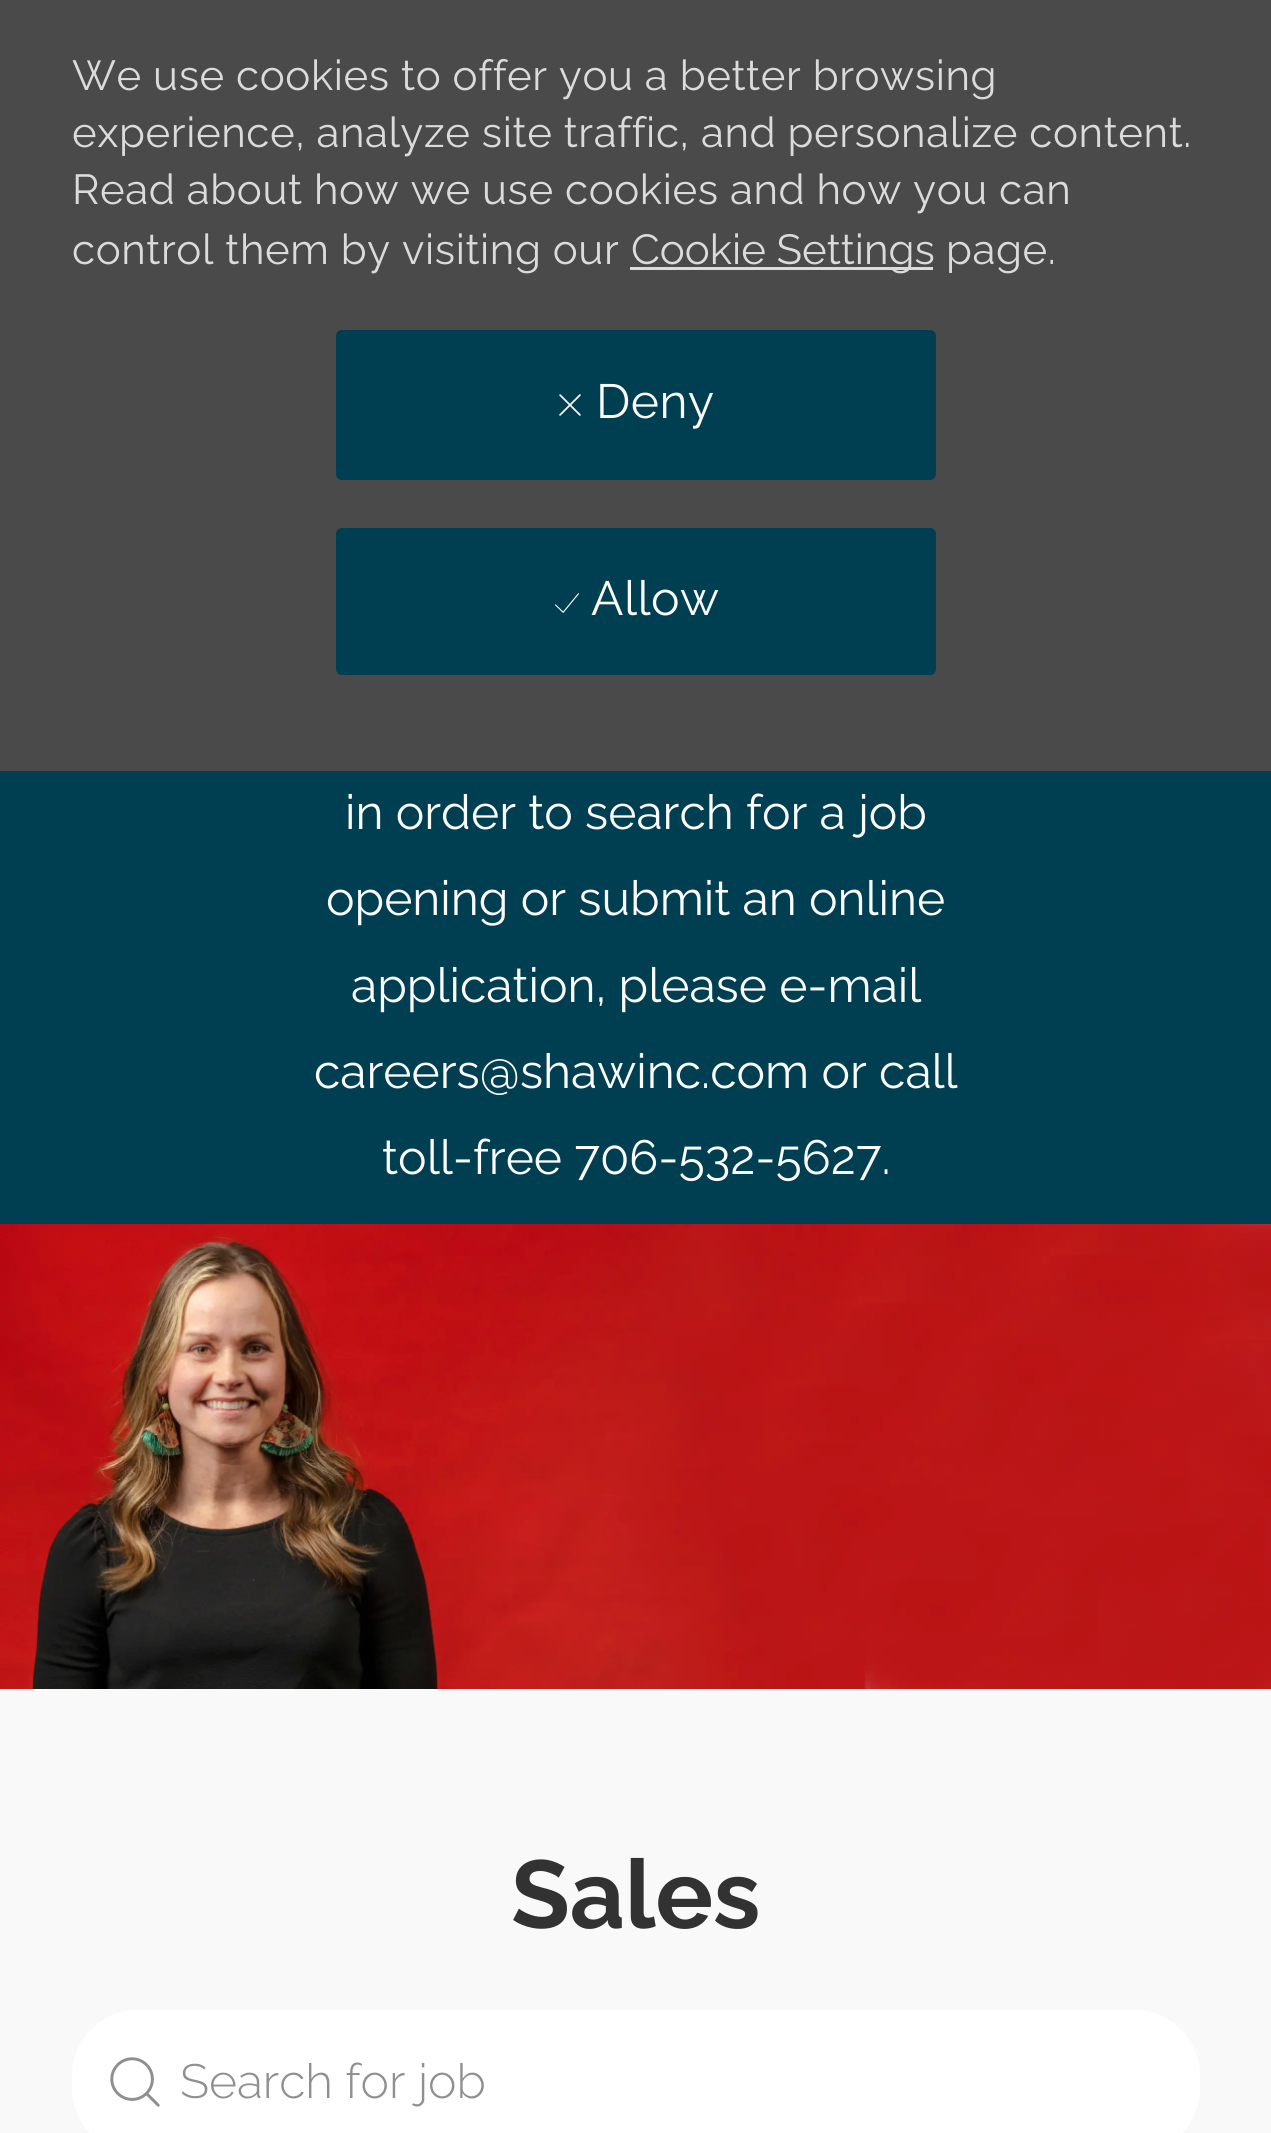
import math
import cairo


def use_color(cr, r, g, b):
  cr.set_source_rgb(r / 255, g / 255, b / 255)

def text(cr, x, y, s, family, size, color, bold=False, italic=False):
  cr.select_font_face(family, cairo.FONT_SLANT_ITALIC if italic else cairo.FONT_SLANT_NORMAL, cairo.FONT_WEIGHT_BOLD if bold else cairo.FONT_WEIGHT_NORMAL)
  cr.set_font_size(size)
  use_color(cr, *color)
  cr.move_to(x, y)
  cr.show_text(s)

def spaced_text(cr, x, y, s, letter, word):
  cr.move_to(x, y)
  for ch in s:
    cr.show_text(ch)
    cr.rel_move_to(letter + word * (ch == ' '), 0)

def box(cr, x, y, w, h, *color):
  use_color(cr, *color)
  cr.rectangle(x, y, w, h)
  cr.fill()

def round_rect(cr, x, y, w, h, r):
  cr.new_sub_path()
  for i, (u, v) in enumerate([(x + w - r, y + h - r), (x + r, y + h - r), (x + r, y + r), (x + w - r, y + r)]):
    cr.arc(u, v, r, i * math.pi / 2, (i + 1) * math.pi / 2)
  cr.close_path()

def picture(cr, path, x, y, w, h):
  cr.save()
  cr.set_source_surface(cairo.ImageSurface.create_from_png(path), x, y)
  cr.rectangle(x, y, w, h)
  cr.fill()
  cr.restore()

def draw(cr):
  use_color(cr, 0, 62, 81)
  cr.paint()
  box(cr, 0, 0, 1271, 771, 74, 74, 74)
  box(cr, 630, 267, 303, 3, 219, 219, 219)
  use_color(cr, 0, 62, 81)
  round_rect(cr, 337.5, 331.5, 597, 147, 4.5)
  cr.fill_preserve()
  cr.set_line_width(3)
  cr.stroke()
  picture(cr, "img_01.png", 559, 394, 22, 22)
  round_rect(cr, 337.5, 529.5, 597, 144, 4.5)
  cr.fill_preserve()
  cr.stroke()
  picture(cr, "img_02.png", 555, 593, 24, 20)
  box(cr, 0, 1689, 1271, 444, 249, 249, 249)
  picture(cr, "img_03.png", 0, 1224, 1271, 465)
  use_color(cr, 255, 255, 255)
  round_rect(cr, 72, 2010, 1128, 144, 66)
  cr.fill()
  picture(cr, "img_04.png", 110, 2057, 50, 50)
  cr.select_font_face("Raleway")
  cr.set_font_size(42)
  use_color(cr, 219, 219, 219)
  spaced_text(cr, 72, 90, "We use cookies to offer you a better browsing", 0.6, 0)
  spaced_text(cr, 72, 147, "experience, analyze site traffic, and personalize content.", 0.6, 0)
  spaced_text(cr, 72, 204, "Read about how we use cookies and how you can", 0.6, 0)
  spaced_text(cr, 72, 264, "control them by visiting our", 0.6, 0)
  text(cr, 631, 264, "Cookie Settings", "Raleway", 42, (219, 219, 219))
  spaced_text(cr, 946, 264, "page.", 0.6, 0)
  cr.set_font_size(48)
  use_color(cr, 252, 252, 252)
  spaced_text(cr, 596, 418, "Deny", 0.5, 0)
  spaced_text(cr, 591, 615, "Allow", 0.5, 0)
  text(cr, 345, 829, "in order to search for a job", "Raleway", 48, (252, 252, 252))
  text(cr, 326, 915, "opening or submit an online", "Raleway", 48, (252, 252, 252))
  text(cr, 351, 1002, "application, please e-mail", "Raleway", 48, (252, 252, 252))
  text(cr, 314, 1088, "careers@shawinc.com or call", "Raleway", 48, (252, 252, 252))
  text(cr, 382, 1174, "toll-free 706-532-5627.", "Raleway", 48, (252, 252, 252))
  text(cr, 511, 1928, "Sales", "Raleway", 96, (50, 50, 50), bold=True)
  text(cr, 180, 2098, "Search for job", "Raleway Light", 48, (143, 143, 143))


surface = cairo.ImageSurface(cairo.FORMAT_RGB24, 1271, 2133)
cr = cairo.Context(surface)
options = cairo.FontOptions()
options.set_hint_metrics(cairo.HINT_METRICS_OFF)
options.set_hint_style(cairo.HINT_STYLE_NONE)
cr.set_font_options(options)
cr.set_miter_limit(4)
draw(cr)
surface.write_to_png("out.png")
